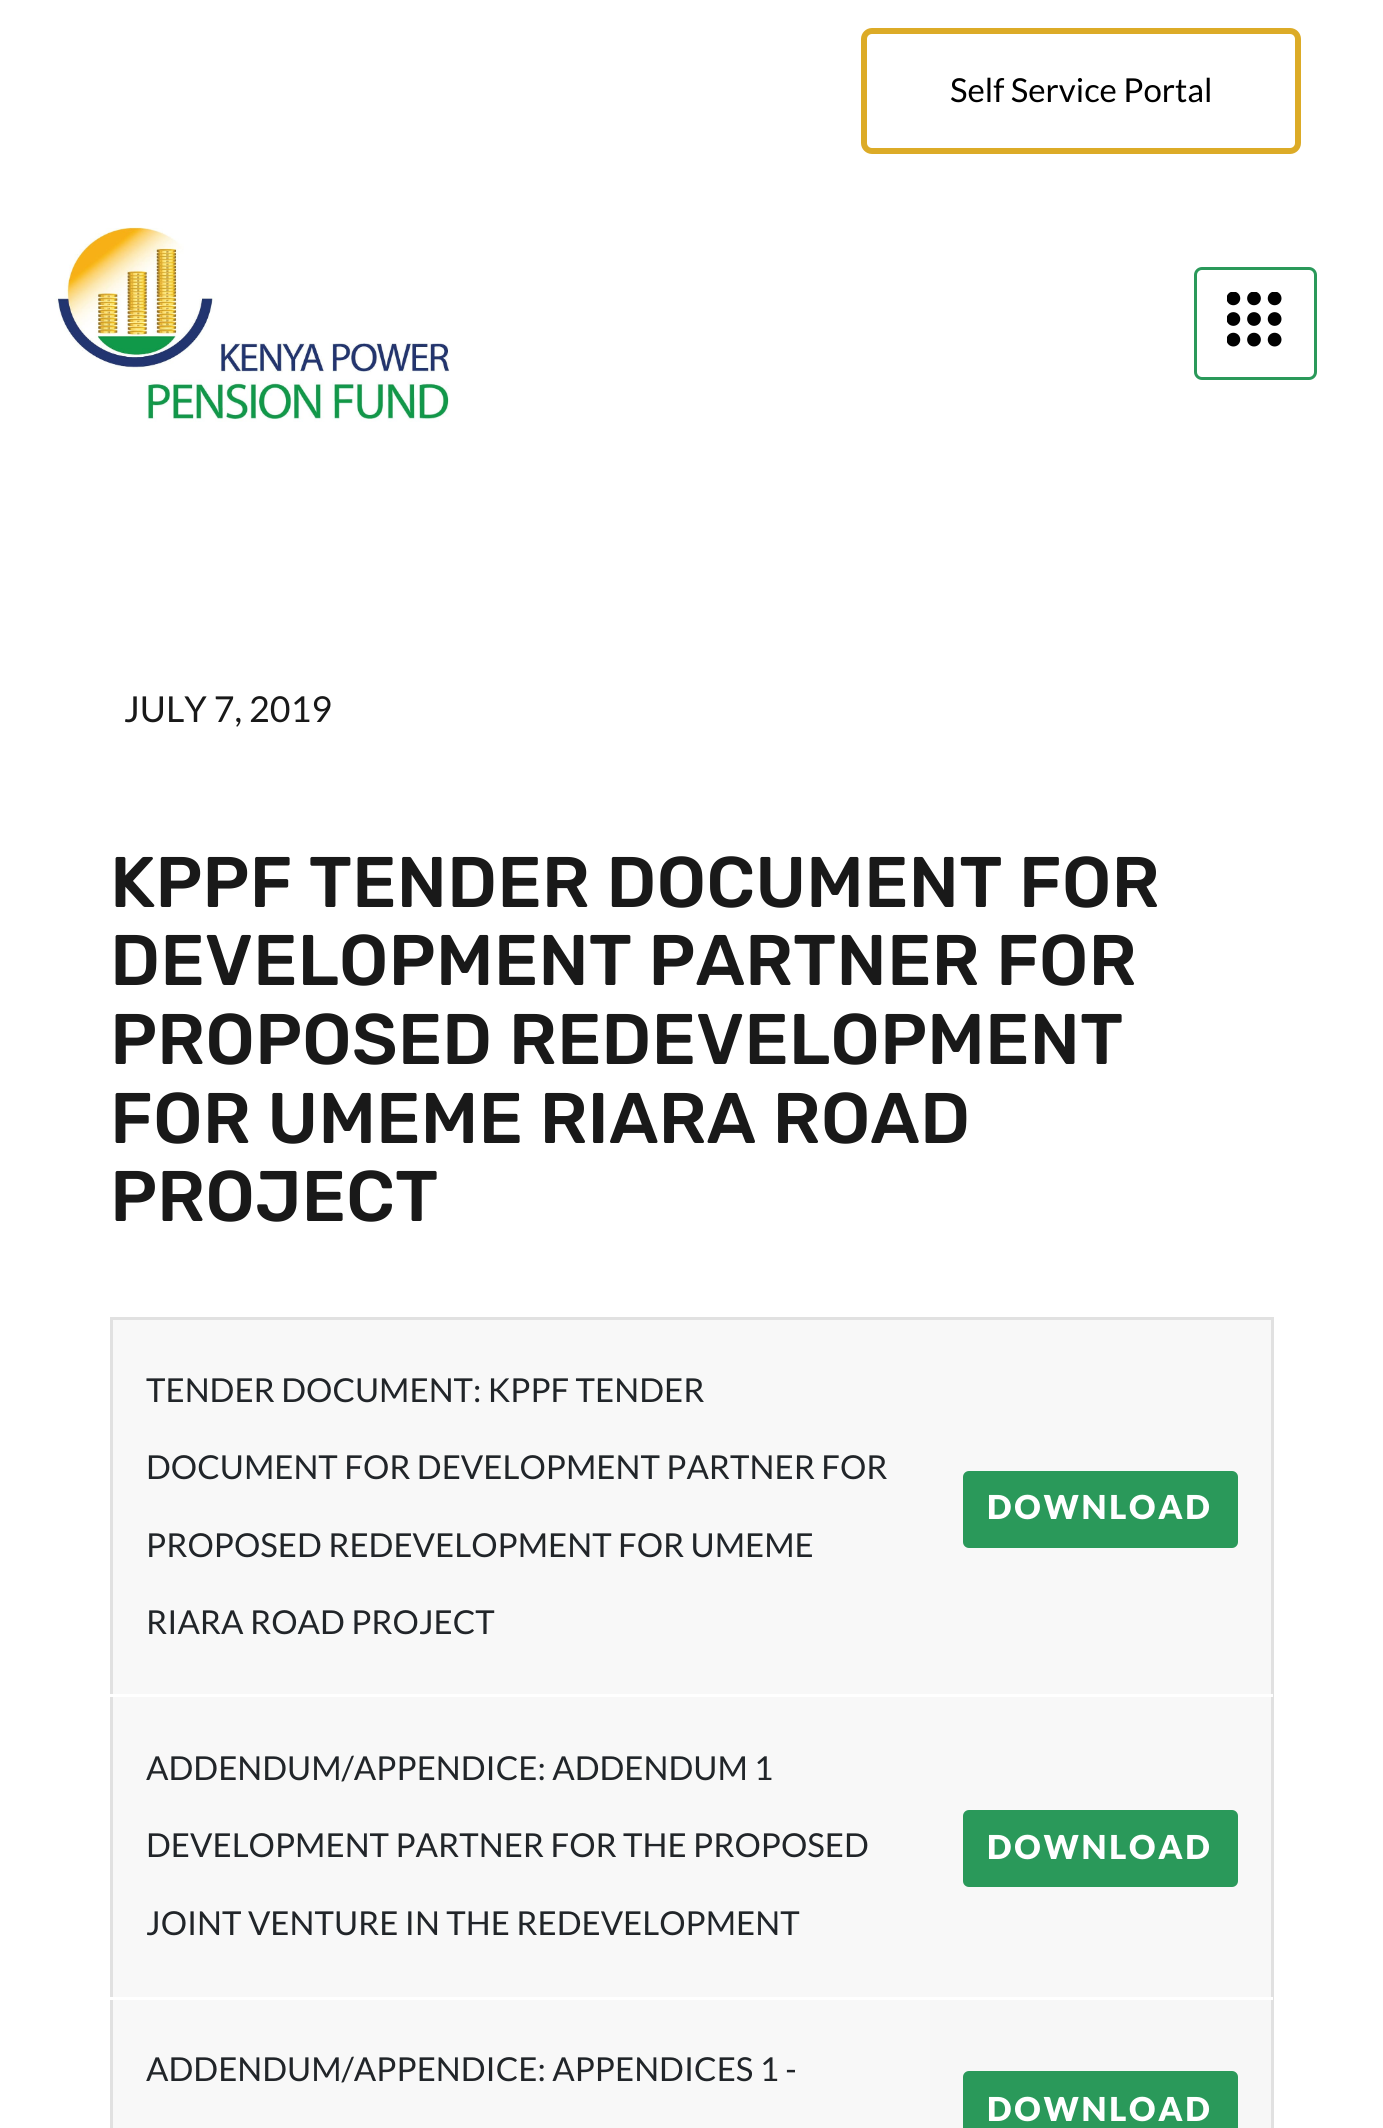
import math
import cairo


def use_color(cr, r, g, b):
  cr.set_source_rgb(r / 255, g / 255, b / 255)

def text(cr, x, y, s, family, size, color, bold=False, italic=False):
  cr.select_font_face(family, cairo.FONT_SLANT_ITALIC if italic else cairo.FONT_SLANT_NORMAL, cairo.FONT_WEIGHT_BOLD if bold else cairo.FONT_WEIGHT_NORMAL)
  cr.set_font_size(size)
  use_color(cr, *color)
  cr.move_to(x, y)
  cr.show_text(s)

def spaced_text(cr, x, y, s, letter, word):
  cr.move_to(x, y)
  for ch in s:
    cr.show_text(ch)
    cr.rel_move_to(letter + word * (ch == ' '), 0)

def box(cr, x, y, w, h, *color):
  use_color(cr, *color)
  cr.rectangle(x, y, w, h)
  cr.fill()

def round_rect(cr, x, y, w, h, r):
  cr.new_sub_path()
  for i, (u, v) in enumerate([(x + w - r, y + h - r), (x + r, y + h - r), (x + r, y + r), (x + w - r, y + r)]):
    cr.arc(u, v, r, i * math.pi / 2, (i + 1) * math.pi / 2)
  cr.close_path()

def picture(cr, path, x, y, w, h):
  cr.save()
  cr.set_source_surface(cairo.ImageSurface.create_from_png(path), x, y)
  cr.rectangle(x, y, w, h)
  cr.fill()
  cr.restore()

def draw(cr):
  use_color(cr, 255, 255, 255)
  cr.paint()
  round_rect(cr, 864, 31, 434, 120, 8)
  use_color(cr, 220, 171, 39)
  cr.set_line_width(6)
  cr.stroke()
  picture(cr, "img_01.png", 54, 227, 396, 195)
  round_rect(cr, 1195.5, 268.5, 120, 110, 6.5)
  use_color(cr, 42, 153, 90)
  cr.set_line_width(3)
  cr.stroke()
  picture(cr, "img_02.png", 1227, 292, 55, 55)
  box(cr, 110, 1317, 1163, 3, 225, 225, 225)
  box(cr, 1271, 1694, 3, 434, 225, 225, 225)
  box(cr, 1271, 1317, 3, 380, 225, 225, 225)
  box(cr, 110, 1694, 3, 434, 225, 225, 225)
  box(cr, 110, 1317, 3, 380, 225, 225, 225)
  box(cr, 113, 1320, 1158, 374, 248, 248, 248)
  use_color(cr, 42, 153, 90)
  round_rect(cr, 964.5, 1472.5, 272, 74, 4.5)
  cr.fill_preserve()
  cr.stroke()
  box(cr, 113, 1697, 1158, 300, 248, 248, 248)
  box(cr, 110, 1694, 3, 3, 255, 255, 255)
  box(cr, 1271, 1694, 2, 3, 255, 255, 255)
  use_color(cr, 42, 153, 90)
  round_rect(cr, 964.5, 1811.5, 272, 74, 4.5)
  cr.fill_preserve()
  cr.stroke()
  box(cr, 113, 2000, 817, 128, 248, 248, 248)
  box(cr, 110, 1997, 3, 3, 255, 255, 255)
  box(cr, 930, 2000, 341, 128, 247, 247, 247)
  box(cr, 1271, 1997, 2, 3, 255, 255, 255)
  use_color(cr, 42, 153, 90)
  round_rect(cr, 964.5, 2072.5, 272, 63, 4.5)
  cr.fill_preserve()
  cr.stroke()
  text(cr, 950, 102, "Self Service Portal", "Lato", 33, (0, 0, 0))
  text(cr, 124, 722, "JULY 7, 2019", "Lato", 35.75, (25, 25, 25))
  text(cr, 110, 907, "KPPF TENDER DOCUMENT FOR", "Rubik Medium", 71.5, (25, 25, 25))
  text(cr, 110, 985, "DEVELOPMENT PARTNER FOR", "Rubik Medium", 71.5, (25, 25, 25))
  text(cr, 110, 1064, "PROPOSED REDEVELOPMENT", "Rubik Medium", 71.5, (25, 25, 25))
  text(cr, 110, 1143, "FOR UMEME RIARA ROAD", "Rubik Medium", 71.5, (25, 25, 25))
  text(cr, 110, 1221, "PROJECT", "Rubik Medium", 71.5, (25, 25, 25))
  text(cr, 146, 1402, "TENDER DOCUMENT: KPPF TENDER", "Lato", 33, (33, 37, 41))
  text(cr, 146, 1479, "DOCUMENT FOR DEVELOPMENT PARTNER FOR", "Lato", 33, (33, 37, 41))
  text(cr, 146, 1557, "PROPOSED REDEVELOPMENT FOR UMEME", "Lato", 33, (33, 37, 41))
  text(cr, 146, 1634, "RIARA ROAD PROJECT", "Lato", 33, (33, 37, 41))
  cr.select_font_face("Lato Black")
  use_color(cr, 255, 255, 255)
  spaced_text(cr, 987, 1519, "DOWNLOAD", 2.75, 0)
  text(cr, 146, 1780, "ADDENDUM/APPENDICE: ADDENDUM 1", "Lato", 33, (33, 37, 41))
  text(cr, 146, 1857, "DEVELOPMENT PARTNER FOR THE PROPOSED", "Lato", 33, (33, 37, 41))
  text(cr, 146, 1935, "JOINT VENTURE IN THE REDEVELOPMENT", "Lato", 33, (33, 37, 41))
  cr.select_font_face("Lato Black")
  use_color(cr, 255, 255, 255)
  spaced_text(cr, 987, 1859, "DOWNLOAD", 2.75, 0)
  text(cr, 146, 2081, "ADDENDUM/APPENDICE: APPENDICES 1 -", "Lato", 33, (33, 37, 41))
  cr.select_font_face("Lato Black")
  use_color(cr, 255, 255, 255)
  spaced_text(cr, 987, 2121, "DOWNLOAD", 2.75, 0)


surface = cairo.ImageSurface(cairo.FORMAT_RGB24, 1383, 2128)
cr = cairo.Context(surface)
options = cairo.FontOptions()
options.set_hint_metrics(cairo.HINT_METRICS_OFF)
options.set_hint_style(cairo.HINT_STYLE_NONE)
cr.set_font_options(options)
cr.set_miter_limit(4)
draw(cr)
surface.write_to_png("out.png")
